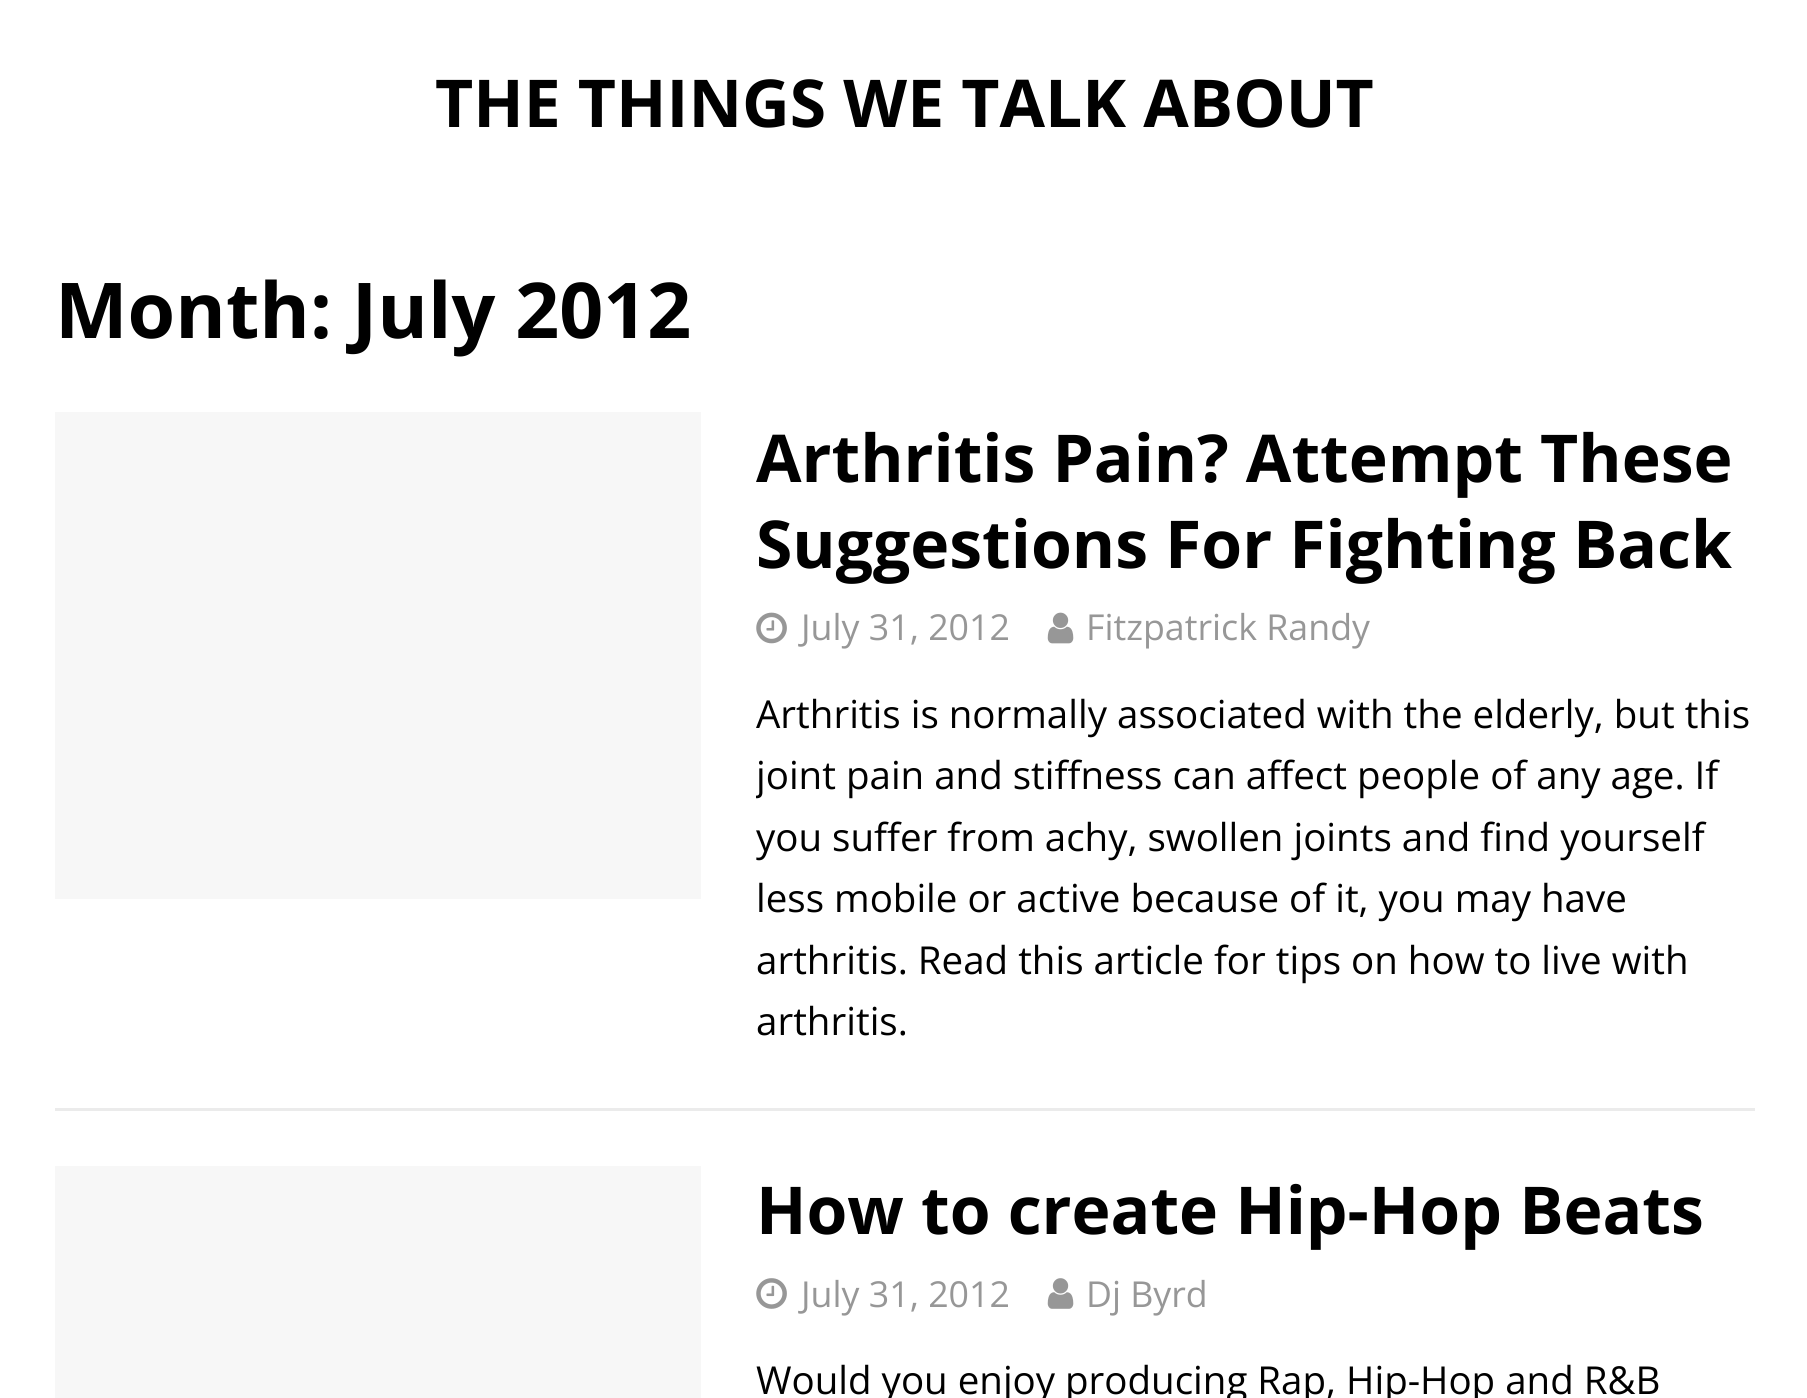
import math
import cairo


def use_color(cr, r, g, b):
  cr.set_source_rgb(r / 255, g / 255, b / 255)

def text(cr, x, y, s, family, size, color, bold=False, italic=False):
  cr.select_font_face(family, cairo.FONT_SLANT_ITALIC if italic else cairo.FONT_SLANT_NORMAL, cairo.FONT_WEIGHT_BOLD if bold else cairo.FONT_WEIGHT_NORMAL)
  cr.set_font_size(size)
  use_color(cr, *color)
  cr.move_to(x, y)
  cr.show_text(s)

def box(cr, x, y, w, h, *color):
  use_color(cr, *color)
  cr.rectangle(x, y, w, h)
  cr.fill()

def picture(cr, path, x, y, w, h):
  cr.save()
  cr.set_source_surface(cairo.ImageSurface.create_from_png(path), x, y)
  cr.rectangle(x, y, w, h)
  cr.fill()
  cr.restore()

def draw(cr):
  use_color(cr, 255, 255, 255)
  cr.paint()
  box(cr, 55, 1108, 1700, 3, 235, 235, 235)
  box(cr, 55, 412, 646, 487, 247, 247, 247)
  picture(cr, "img_01.png", 756, 612, 31, 32)
  picture(cr, "img_02.png", 1047, 612, 27, 32)
  box(cr, 55, 1166, 646, 232, 247, 247, 247)
  picture(cr, "img_03.png", 756, 1278, 31, 31)
  picture(cr, "img_04.png", 1047, 1278, 27, 31)
  text(cr, 435, 127, "THE THINGS WE TALK ABOUT", "Open Sans", 66, (0, 0, 0), bold=True)
  text(cr, 55, 338, "Month: July 2012", "Open Sans", 77, (0, 0, 0), bold=True)
  text(cr, 756, 482, "Arthritis Pain? Attempt These", "Open Sans", 66, (0, 0, 0), bold=True)
  text(cr, 756, 568, "Suggestions For Fighting Back", "Open Sans", 66, (0, 0, 0), bold=True)
  text(cr, 801, 640, "July 31, 2012", "Open Sans", 35.75, (151, 151, 151))
  text(cr, 1086, 640, "Fitzpatrick Randy", "Open Sans", 35.75, (151, 151, 151))
  text(cr, 756, 728, "Arthritis is normally associated with the elderly, but this", "Open Sans", 38.5, (0, 0, 0))
  cr.save()
  cr.rectangle(756, 685, 999, 368)
  cr.clip()
  text(cr, 756, 789, "joint pain and stiffness can affect people of any age. If", "Open Sans", 38.5, (0, 0, 0))
  cr.restore()
  text(cr, 756, 851, "you suffer from achy, swollen joints and find yourself", "Open Sans", 38.5, (0, 0, 0))
  text(cr, 756, 912, "less mobile or active because of it, you may have", "Open Sans", 38.5, (0, 0, 0))
  text(cr, 756, 974, "arthritis. Read this article for tips on how to live with", "Open Sans", 38.5, (0, 0, 0))
  text(cr, 756, 1035, "arthritis.", "Open Sans", 38.5, (0, 0, 0))
  text(cr, 756, 1234, "How to create Hip-Hop Beats", "Open Sans", 66, (0, 0, 0), bold=True)
  text(cr, 801, 1307, "July 31, 2012", "Open Sans", 35.75, (151, 151, 151))
  text(cr, 1086, 1307, "Dj Byrd", "Open Sans", 35.75, (151, 151, 151))
  text(cr, 756, 1394, "Would you enjoy producing Rap, Hip-Hop and R&B", "Open Sans", 38.5, (0, 0, 0))


surface = cairo.ImageSurface(cairo.FORMAT_RGB24, 1807, 1398)
cr = cairo.Context(surface)
options = cairo.FontOptions()
options.set_hint_metrics(cairo.HINT_METRICS_OFF)
options.set_hint_style(cairo.HINT_STYLE_NONE)
cr.set_font_options(options)
cr.set_miter_limit(4)
draw(cr)
surface.write_to_png("out.png")
